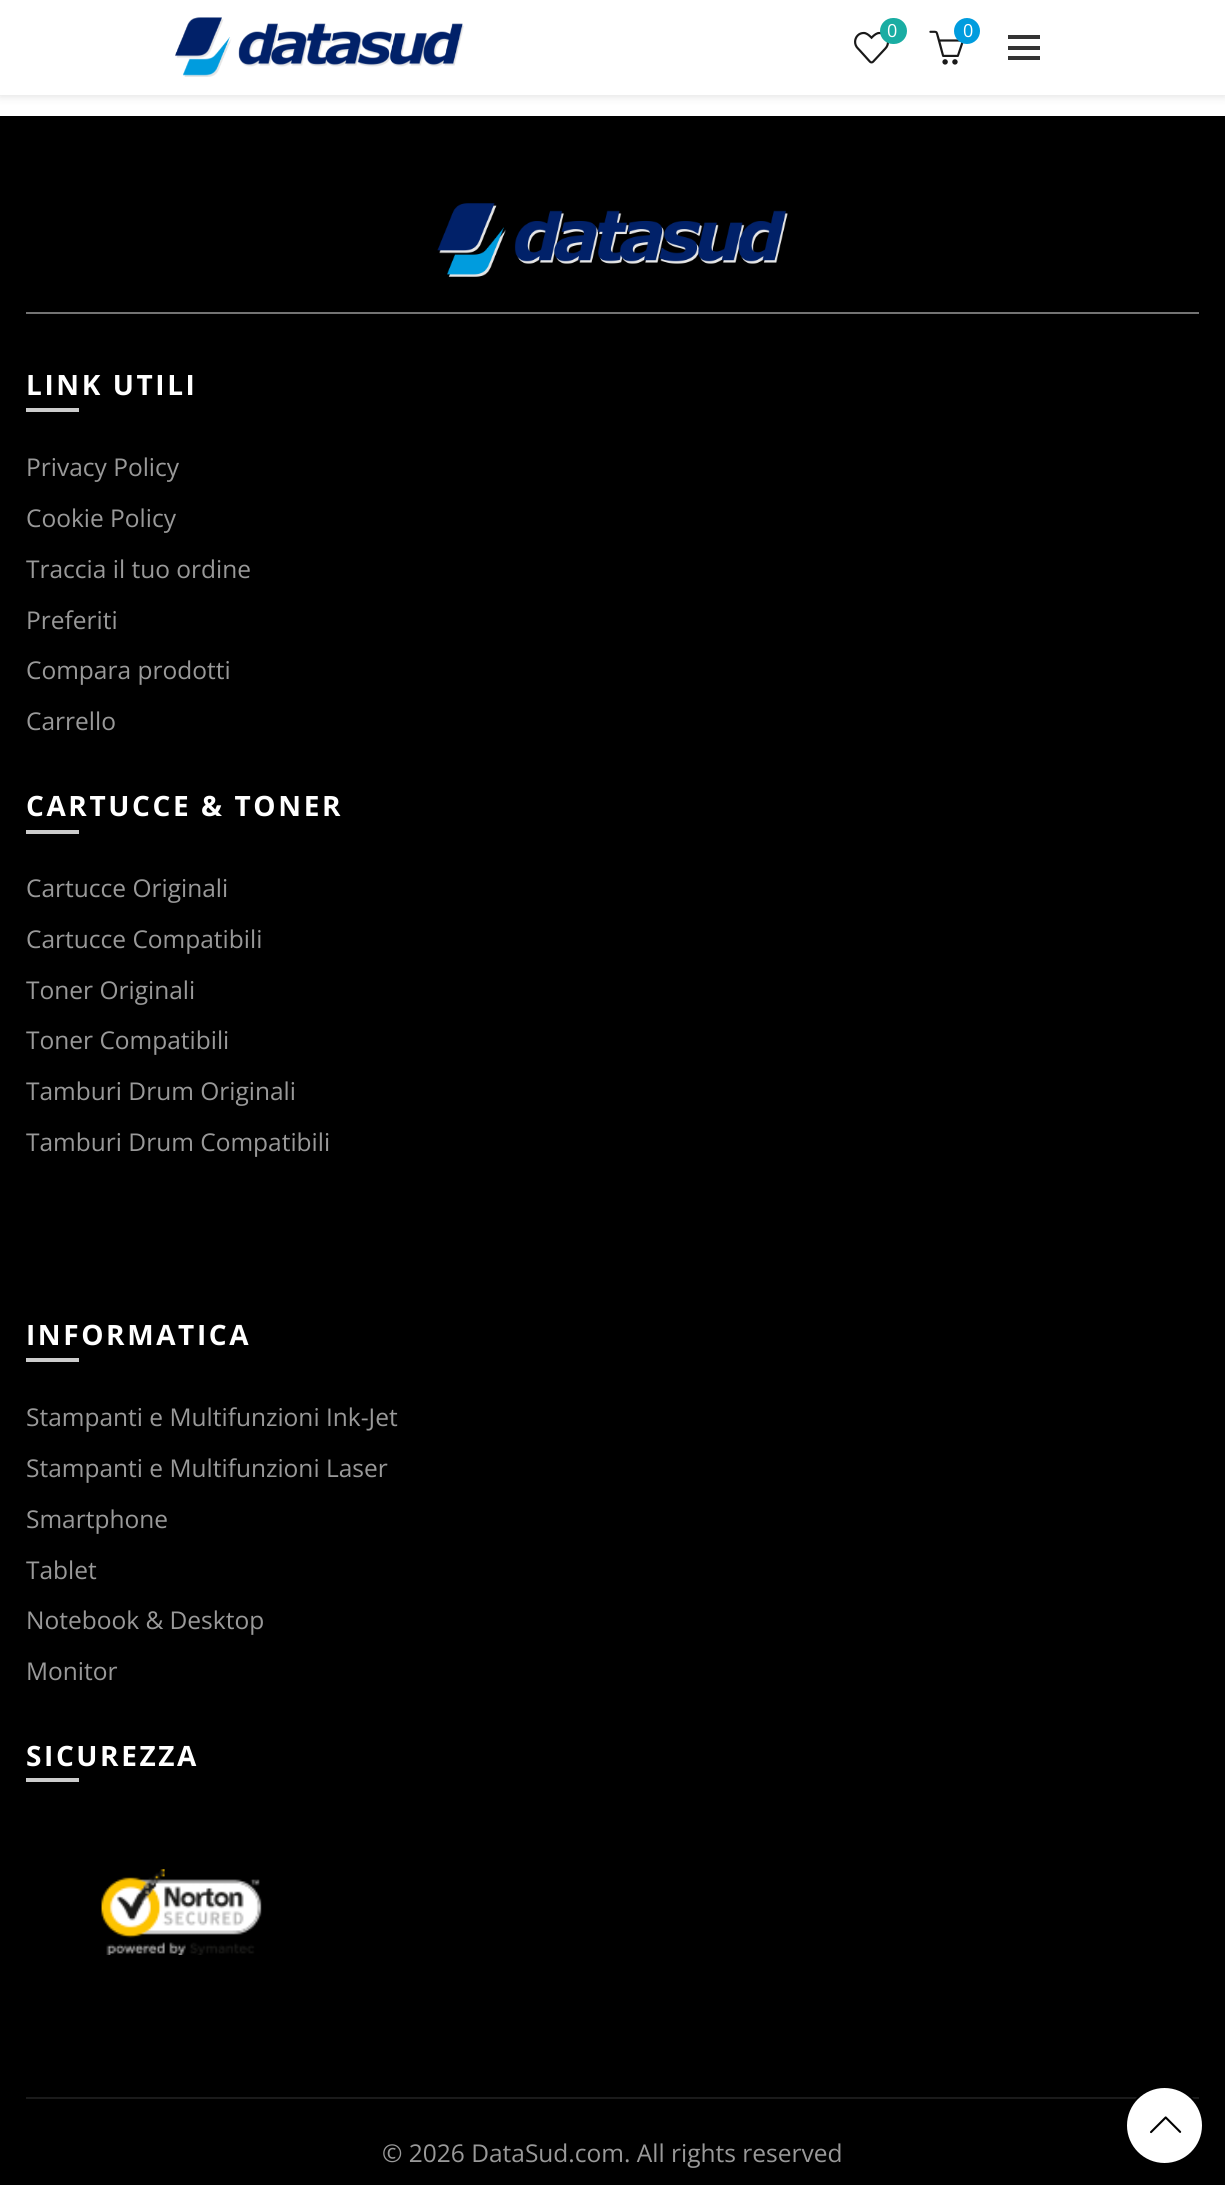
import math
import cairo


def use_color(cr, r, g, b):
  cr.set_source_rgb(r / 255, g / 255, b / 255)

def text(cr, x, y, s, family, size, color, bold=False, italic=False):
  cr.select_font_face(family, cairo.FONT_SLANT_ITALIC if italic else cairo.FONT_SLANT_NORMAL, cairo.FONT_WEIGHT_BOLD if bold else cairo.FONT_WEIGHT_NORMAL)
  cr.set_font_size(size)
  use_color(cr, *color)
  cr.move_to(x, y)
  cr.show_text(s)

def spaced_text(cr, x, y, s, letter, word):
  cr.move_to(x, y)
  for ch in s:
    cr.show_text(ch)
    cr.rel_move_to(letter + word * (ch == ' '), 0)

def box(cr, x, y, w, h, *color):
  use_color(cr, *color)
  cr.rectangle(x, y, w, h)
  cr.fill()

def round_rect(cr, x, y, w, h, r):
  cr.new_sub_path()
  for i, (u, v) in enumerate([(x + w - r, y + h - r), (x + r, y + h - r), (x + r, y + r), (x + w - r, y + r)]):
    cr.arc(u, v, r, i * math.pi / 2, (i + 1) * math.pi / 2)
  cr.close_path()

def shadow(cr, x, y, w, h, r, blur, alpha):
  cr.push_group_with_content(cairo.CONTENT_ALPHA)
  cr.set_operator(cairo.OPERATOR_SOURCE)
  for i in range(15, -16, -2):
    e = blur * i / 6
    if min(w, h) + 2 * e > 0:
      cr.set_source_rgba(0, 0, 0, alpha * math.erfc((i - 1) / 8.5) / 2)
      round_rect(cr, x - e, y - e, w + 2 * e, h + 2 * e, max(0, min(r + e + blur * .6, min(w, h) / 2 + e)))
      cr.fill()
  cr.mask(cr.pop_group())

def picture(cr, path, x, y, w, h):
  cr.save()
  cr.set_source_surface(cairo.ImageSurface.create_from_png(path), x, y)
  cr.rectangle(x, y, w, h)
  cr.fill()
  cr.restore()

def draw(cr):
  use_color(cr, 255, 255, 255)
  cr.paint()
  use_color(cr, 190, 190, 190)
  shadow(cr, 0, 2, 1225, 94, 0, 4.5, 0.5)
  box(cr, 0, 0, 1225, 95, 255, 255, 255)
  picture(cr, "img_01.png", 175, 17, 289, 60)
  picture(cr, "img_02.png", 854, 31, 35, 33)
  use_color(cr, 26, 173, 163)
  round_rect(cr, 880, 18, 27, 26, 13)
  cr.fill()
  picture(cr, "img_03.png", 929, 30, 35, 35)
  use_color(cr, 0, 156, 222)
  cr.arc(967, 31, 13, 0, 2 * math.pi)
  cr.fill()
  box(cr, 1008, 46, 32, 4, 51, 51, 51)
  box(cr, 1008, 35, 32, 4, 51, 51, 51)
  box(cr, 1008, 56, 32, 4, 51, 51, 51)
  box(cr, 0, 116, 1225, 2069, 0, 0, 0)
  picture(cr, "img_04.png", 437, 203, 351, 74)
  box(cr, 26, 312, 1173, 2, 115, 115, 115)
  box(cr, 26, 408, 53, 4, 204, 204, 204)
  box(cr, 26, 830, 53, 4, 204, 204, 204)
  box(cr, 26, 1358, 53, 4, 204, 204, 204)
  box(cr, 26, 1778, 53, 4, 204, 204, 204)
  picture(cr, "img_05.png", 101, 1869, 161, 86)
  box(cr, 26, 2097, 1173, 2, 26, 26, 26)
  use_color(cr, 255, 255, 255)
  cr.arc(1164.5, 2125.5, 38.5, 0, 2 * math.pi)
  cr.fill_preserve()
  use_color(cr, 0, 0, 0)
  cr.stroke()
  picture(cr, "img_06.png", 1150, 2116, 32, 18)
  text(cr, 887, 37, "0", "Open Sans", 18, (255, 255, 255))
  text(cr, 963, 37, "0", "Open Sans", 18, (255, 255, 255))
  cr.select_font_face("Open Sans", cairo.FONT_SLANT_NORMAL, cairo.FONT_WEIGHT_BOLD)
  cr.set_font_size(28)
  spaced_text(cr, 26, 395, "LINK UTILI", 2.6, 0)
  text(cr, 26, 476, "Privacy Policy", "Open Sans", 24.5, (153, 153, 153))
  text(cr, 26, 527, "Cookie Policy", "Open Sans", 24.5, (153, 153, 153))
  text(cr, 26, 578, "Traccia il tuo ordine", "Open Sans", 24.5, (153, 153, 153))
  text(cr, 26, 629, "Preferiti", "Open Sans", 24.5, (153, 153, 153))
  text(cr, 26, 679, "Compara prodotti", "Open Sans", 24.5, (153, 153, 153))
  text(cr, 26, 730, "Carrello", "Open Sans", 24.5, (153, 153, 153))
  cr.select_font_face("Open Sans", cairo.FONT_SLANT_NORMAL, cairo.FONT_WEIGHT_BOLD)
  cr.set_font_size(28)
  use_color(cr, 255, 255, 255)
  spaced_text(cr, 26, 816, "CARTUCCE & TONER", 2.6, 0)
  text(cr, 26, 897, "Cartucce Originali", "Open Sans", 24.5, (153, 153, 153))
  text(cr, 26, 948, "Cartucce Compatibili", "Open Sans", 24.5, (153, 153, 153))
  text(cr, 26, 999, "Toner Originali", "Open Sans", 24.5, (153, 153, 153))
  text(cr, 26, 1049, "Toner Compatibili", "Open Sans", 24.5, (153, 153, 153))
  text(cr, 26, 1100, "Tamburi Drum Originali", "Open Sans", 24.5, (153, 153, 153))
  text(cr, 26, 1151, "Tamburi Drum Compatibili", "Open Sans", 24.5, (153, 153, 153))
  cr.select_font_face("Open Sans", cairo.FONT_SLANT_NORMAL, cairo.FONT_WEIGHT_BOLD)
  cr.set_font_size(28)
  use_color(cr, 255, 255, 255)
  spaced_text(cr, 26, 1345, "INFORMATICA", 2.6, 0)
  text(cr, 26, 1426, "Stampanti e Multifunzioni Ink-Jet", "Open Sans", 24.5, (153, 153, 153))
  text(cr, 26, 1477, "Stampanti e Multifunzioni Laser", "Open Sans", 24.5, (153, 153, 153))
  text(cr, 26, 1528, "Smartphone", "Open Sans", 24.5, (153, 153, 153))
  text(cr, 26, 1579, "Tablet", "Open Sans", 24.5, (153, 153, 153))
  text(cr, 26, 1629, "Notebook & Desktop", "Open Sans", 24.5, (153, 153, 153))
  text(cr, 26, 1680, "Monitor", "Open Sans", 24.5, (153, 153, 153))
  cr.select_font_face("Open Sans", cairo.FONT_SLANT_NORMAL, cairo.FONT_WEIGHT_BOLD)
  cr.set_font_size(28)
  use_color(cr, 255, 255, 255)
  spaced_text(cr, 26, 1766, "SICUREZZA", 2.6, 0)
  text(cr, 382, 2162, "© 2026 DataSud.com. All rights reserved", "Open Sans", 24.5, (153, 153, 153))


surface = cairo.ImageSurface(cairo.FORMAT_RGB24, 1225, 2185)
cr = cairo.Context(surface)
options = cairo.FontOptions()
options.set_hint_metrics(cairo.HINT_METRICS_OFF)
options.set_hint_style(cairo.HINT_STYLE_NONE)
cr.set_font_options(options)
cr.set_miter_limit(4)
draw(cr)
surface.write_to_png("out.png")
